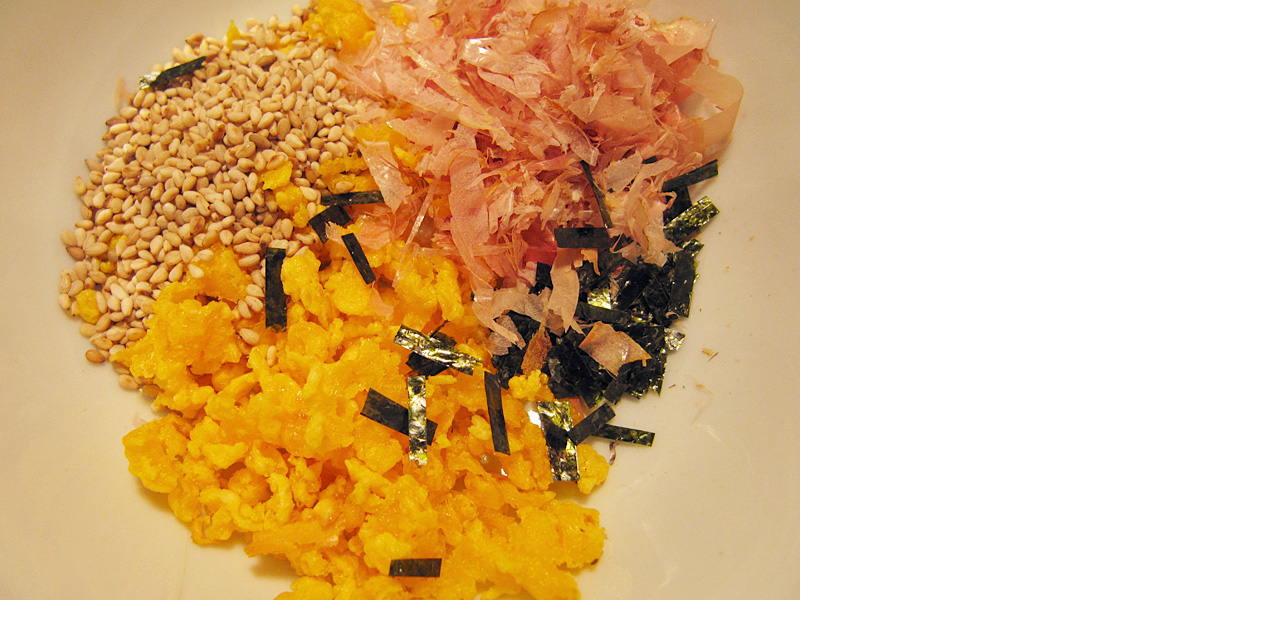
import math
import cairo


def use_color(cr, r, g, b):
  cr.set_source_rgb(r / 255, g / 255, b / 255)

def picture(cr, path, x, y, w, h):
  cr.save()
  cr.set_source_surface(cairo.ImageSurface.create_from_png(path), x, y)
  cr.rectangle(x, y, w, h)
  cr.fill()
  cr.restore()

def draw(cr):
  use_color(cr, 255, 255, 255)
  cr.paint()
  picture(cr, "img_01.png", 0, 0, 800, 600)


surface = cairo.ImageSurface(cairo.FORMAT_RGB24, 1288, 631)
cr = cairo.Context(surface)
options = cairo.FontOptions()
options.set_hint_metrics(cairo.HINT_METRICS_OFF)
options.set_hint_style(cairo.HINT_STYLE_NONE)
cr.set_font_options(options)
cr.set_miter_limit(4)
draw(cr)
surface.write_to_png("out.png")
